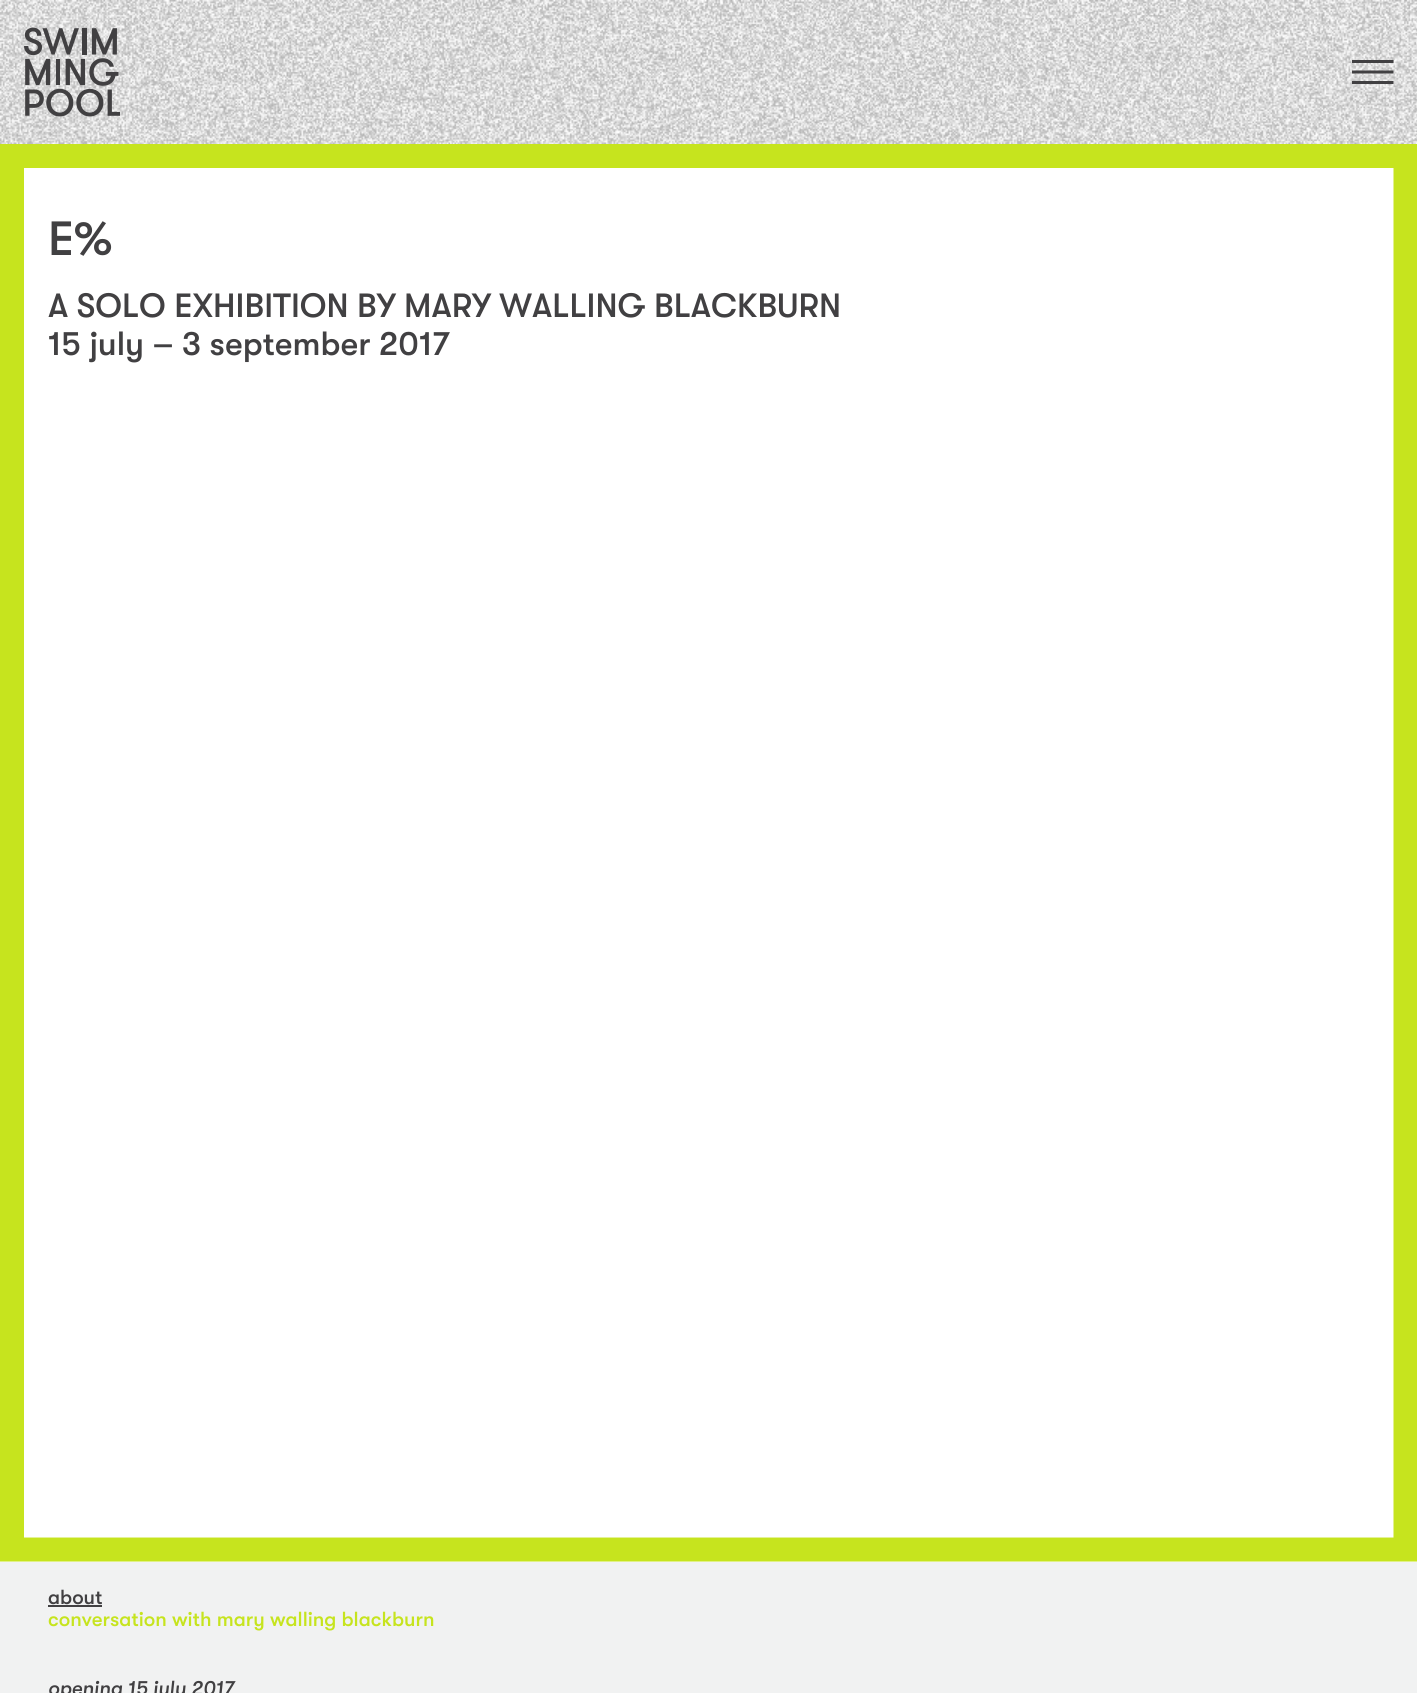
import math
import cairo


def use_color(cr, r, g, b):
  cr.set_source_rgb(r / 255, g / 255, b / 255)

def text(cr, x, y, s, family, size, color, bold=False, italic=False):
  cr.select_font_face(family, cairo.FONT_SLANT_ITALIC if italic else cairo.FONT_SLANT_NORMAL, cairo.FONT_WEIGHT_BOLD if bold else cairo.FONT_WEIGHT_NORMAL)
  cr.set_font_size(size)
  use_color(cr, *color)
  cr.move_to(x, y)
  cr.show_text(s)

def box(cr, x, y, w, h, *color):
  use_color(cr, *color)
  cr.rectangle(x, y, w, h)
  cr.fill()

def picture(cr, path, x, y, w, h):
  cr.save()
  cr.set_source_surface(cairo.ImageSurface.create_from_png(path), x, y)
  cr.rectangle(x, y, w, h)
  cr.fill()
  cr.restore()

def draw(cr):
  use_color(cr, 255, 255, 255)
  cr.paint()
  picture(cr, "img_01.png", 0, 0, 1417, 144)
  picture(cr, "img_02.png", 24, 27, 96, 90)
  cr.save()
  cr.rectangle(1352, 51, 42, 42)
  cr.clip()
  cr.new_path()
  cr.move_to(1351.5, 61.5)
  cr.line_to(1393.5, 61.5)
  cr.move_to(1351.5, 72)
  cr.line_to(1393.5, 72)
  cr.move_to(1351.5, 82.5)
  cr.line_to(1393.5, 82.5)
  use_color(cr, 65, 64, 66)
  cr.set_line_width(3)
  cr.stroke()
  cr.restore()
  cr.save()
  cr.new_path()
  cr.move_to(0, 144)
  cr.line_to(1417.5, 144)
  cr.line_to(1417.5, 1561.5)
  cr.line_to(0, 1561.5)
  cr.close_path()
  cr.clip()
  cr.new_path()
  cr.move_to(0, 144)
  cr.line_to(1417.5, 144)
  cr.line_to(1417.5, 1561.5)
  cr.line_to(0, 1561.5)
  cr.close_path()
  use_color(cr, 198, 228, 30)
  cr.set_line_width(48)
  cr.stroke()
  cr.restore()
  box(cr, 0, 1562, 1417, 131, 241, 242, 242)
  box(cr, 48, 1605, 54, 2, 65, 64, 66)
  text(cr, 48, 255, "E%", "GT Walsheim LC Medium", 48, (65, 64, 66))
  text(cr, 48, 317, "A SOLO EXHIBITION BY MARY WALLING BLACKBURN", "GT Walsheim LC Medium", 33.6, (65, 64, 66))
  text(cr, 48, 355, "15 july – 3 september 2017", "GT Walsheim LC Medium", 33.6, (65, 64, 66))
  text(cr, 48, 1604, "about", "GT Walsheim LC Medium", 20.4, (65, 64, 66))
  text(cr, 48, 1626, "conversation with mary walling blackburn", "GT Walsheim LC Medium", 20.4, (198, 228, 30))
  text(cr, 48, 1695, "opening 15 july 2017", "GT Walsheim LC Medium", 20.4, (65, 64, 66), italic=True)


surface = cairo.ImageSurface(cairo.FORMAT_RGB24, 1417, 1693)
cr = cairo.Context(surface)
options = cairo.FontOptions()
options.set_hint_metrics(cairo.HINT_METRICS_OFF)
options.set_hint_style(cairo.HINT_STYLE_NONE)
cr.set_font_options(options)
cr.set_miter_limit(4)
draw(cr)
surface.write_to_png("out.png")
